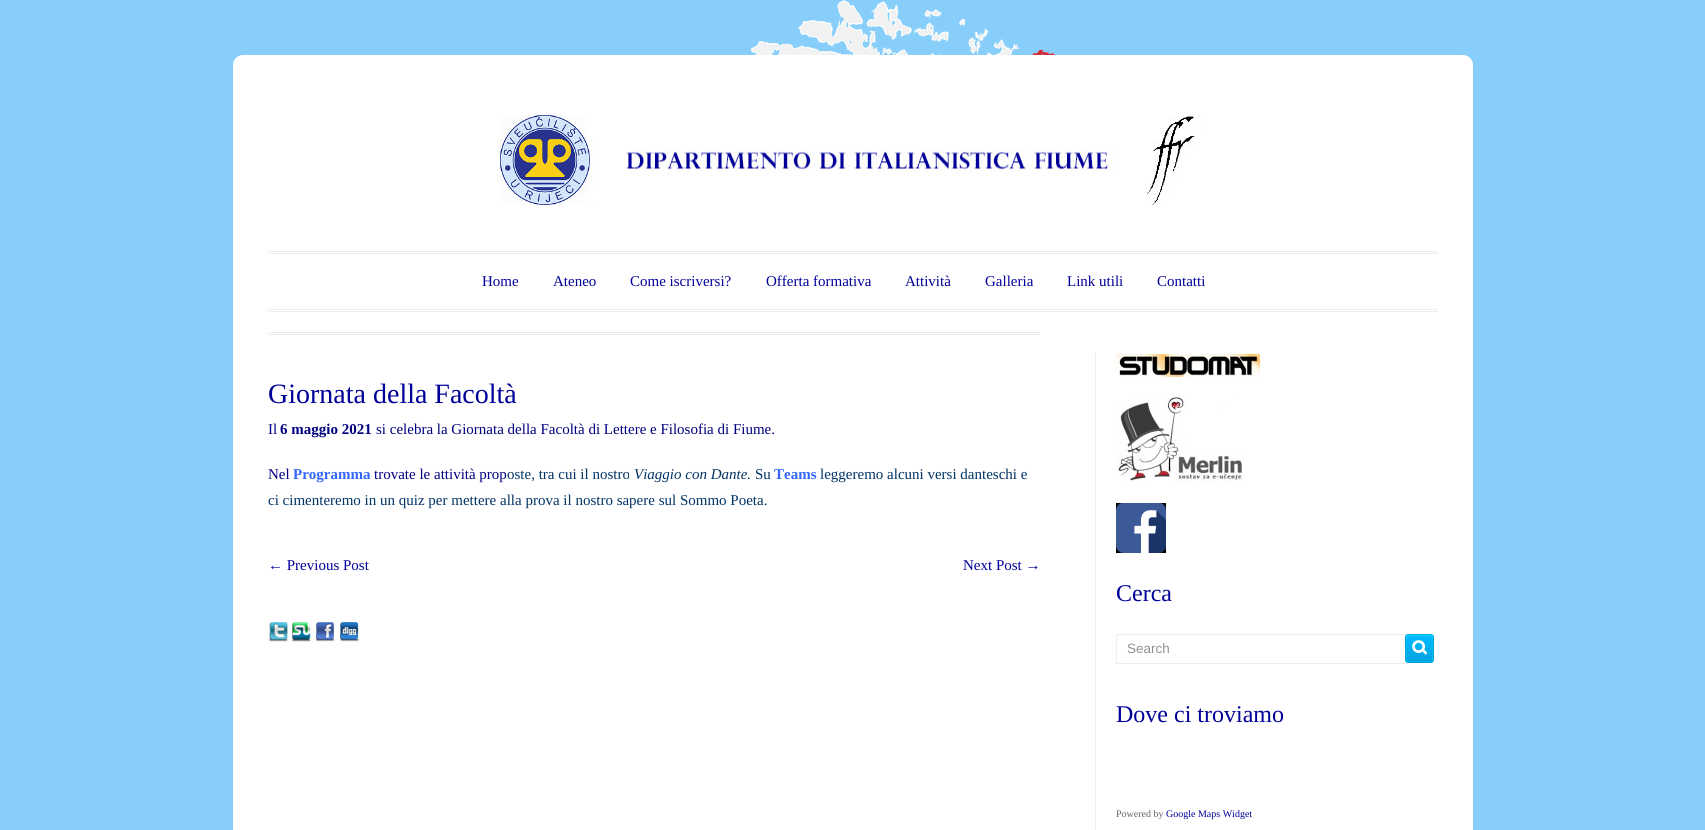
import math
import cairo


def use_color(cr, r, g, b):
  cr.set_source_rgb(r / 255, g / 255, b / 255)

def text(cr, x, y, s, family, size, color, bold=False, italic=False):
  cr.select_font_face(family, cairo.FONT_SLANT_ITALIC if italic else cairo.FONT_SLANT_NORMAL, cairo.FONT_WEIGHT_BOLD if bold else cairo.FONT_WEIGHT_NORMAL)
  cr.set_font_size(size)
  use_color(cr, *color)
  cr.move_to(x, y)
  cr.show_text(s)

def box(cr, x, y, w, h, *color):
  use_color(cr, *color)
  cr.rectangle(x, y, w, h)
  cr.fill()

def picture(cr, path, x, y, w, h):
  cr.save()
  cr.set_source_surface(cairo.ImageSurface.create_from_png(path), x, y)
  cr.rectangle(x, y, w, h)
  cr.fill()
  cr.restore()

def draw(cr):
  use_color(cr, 135, 206, 250)
  cr.paint()
  picture(cr, "img_01.png", 750, 0, 305, 55)
  use_color(cr, 255, 255, 255)
  cr.new_path()
  cr.move_to(243, 55)
  cr.line_to(1463, 55)
  cr.curve_to(1468.5, 55, 1473, 59.5, 1473, 65)
  cr.line_to(1473, 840)
  cr.line_to(233, 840)
  cr.line_to(233, 65)
  cr.curve_to(233, 59.5, 237.5, 55, 243, 55)
  cr.close_path()
  cr.fill()
  picture(cr, "img_02.png", 497, 115, 704, 90)
  box(cr, 268, 251, 1170, 1, 238, 238, 238)
  box(cr, 268, 253, 1170, 1, 238, 238, 238)
  box(cr, 268, 309, 1170, 1, 238, 238, 238)
  box(cr, 268, 311, 1170, 1, 238, 238, 238)
  box(cr, 268, 332, 772, 1, 238, 238, 238)
  box(cr, 268, 334, 772, 1, 238, 238, 238)
  picture(cr, "img_03.png", 269, 622, 19, 20)
  picture(cr, "img_04.png", 292, 622, 19, 20)
  picture(cr, "img_05.png", 315, 622, 20, 20)
  picture(cr, "img_06.png", 340, 622, 19, 20)
  box(cr, 1095, 352, 1, 478, 238, 238, 238)
  picture(cr, "img_07.png", 1116, 354, 144, 23)
  picture(cr, "img_08.png", 1116, 397, 128, 86)
  picture(cr, "img_09.png", 1116, 503, 50, 50)
  cr.rectangle(1116.5, 634.5, 291, 29)
  cr.set_line_width(1)
  cr.stroke()
  picture(cr, "img_10.png", 1405, 634, 29, 29)
  text(cr, 482, 286, "Home", "Liberation Serif", 15, (0, 0, 153))
  text(cr, 553, 286, "Ateneo", "Liberation Serif", 15, (0, 0, 153))
  text(cr, 630, 286, "Come iscriversi?", "Liberation Serif", 15, (0, 0, 153))
  text(cr, 766, 286, "Offerta formativa", "Liberation Serif", 15, (0, 0, 153))
  text(cr, 905, 286, "Attività", "Liberation Serif", 15, (0, 0, 153))
  text(cr, 985, 286, "Galleria", "Liberation Serif", 15, (0, 0, 153))
  text(cr, 1067, 286, "Link utili", "Liberation Serif", 15, (0, 0, 153))
  text(cr, 1157, 286, "Contatti", "Liberation Serif", 15, (0, 0, 153))
  text(cr, 268, 403, "Giornata della Facoltà", "Liberation Serif", 28, (0, 0, 153))
  text(cr, 268, 434, "Il", "Liberation Serif", 15, (0, 0, 128))
  text(cr, 280, 434, "6 maggio 2021", "Liberation Serif", 15, (0, 0, 128), bold=True)
  text(cr, 376, 434, "si celebra la Giornata della Facoltà di Lettere e Filosofia di Fiume.", "Liberation Serif", 15, (0, 0, 128))
  text(cr, 268, 479, "Nel", "Liberation Serif", 15, (0, 0, 128))
  text(cr, 293, 479, "Programma", "Liberation Serif", 15, (51, 102, 255), bold=True)
  text(cr, 374, 479, "trovate le attività prop", "Liberation Serif", 15, (0, 0, 128))
  text(cr, 507, 479, "oste, tra cui il nostro", "Liberation Serif", 15, (0, 51, 102))
  text(cr, 634, 479, "Viaggio con Dante.", "Liberation Serif", 15, (0, 51, 102), italic=True)
  text(cr, 755, 479, "Su", "Liberation Serif", 15, (0, 51, 102))
  text(cr, 774, 479, "Teams", "Liberation Serif", 15, (51, 102, 255), bold=True)
  text(cr, 820, 479, "leggeremo alcuni versi danteschi e", "Liberation Serif", 15, (0, 51, 102))
  text(cr, 268, 505, "ci cimenteremo in un quiz per mettere alla prova il nostro sapere sul Sommo Poeta.", "Liberation Serif", 15, (0, 51, 102))
  text(cr, 268, 570, "← Previous Post", "Liberation Serif", 15, (0, 0, 153))
  text(cr, 963, 570, "Next Post →", "Liberation Serif", 15, (0, 0, 153))
  text(cr, 1116, 601, "Cerca", "Liberation Serif", 24, (0, 0, 153))
  text(cr, 1127, 653, "Search", "Liberation Sans", 13.5, (147, 146, 146))
  text(cr, 1116, 722, "Dove ci troviamo", "Liberation Serif", 24, (0, 0, 153))
  text(cr, 1116, 817, "Powered by", "Liberation Serif", 10, (102, 102, 102))
  text(cr, 1166, 817, "Google Maps Widget", "Liberation Serif", 10, (0, 0, 153))


surface = cairo.ImageSurface(cairo.FORMAT_RGB24, 1705, 830)
cr = cairo.Context(surface)
options = cairo.FontOptions()
options.set_hint_metrics(cairo.HINT_METRICS_OFF)
options.set_hint_style(cairo.HINT_STYLE_NONE)
cr.set_font_options(options)
cr.set_miter_limit(4)
draw(cr)
surface.write_to_png("out.png")
